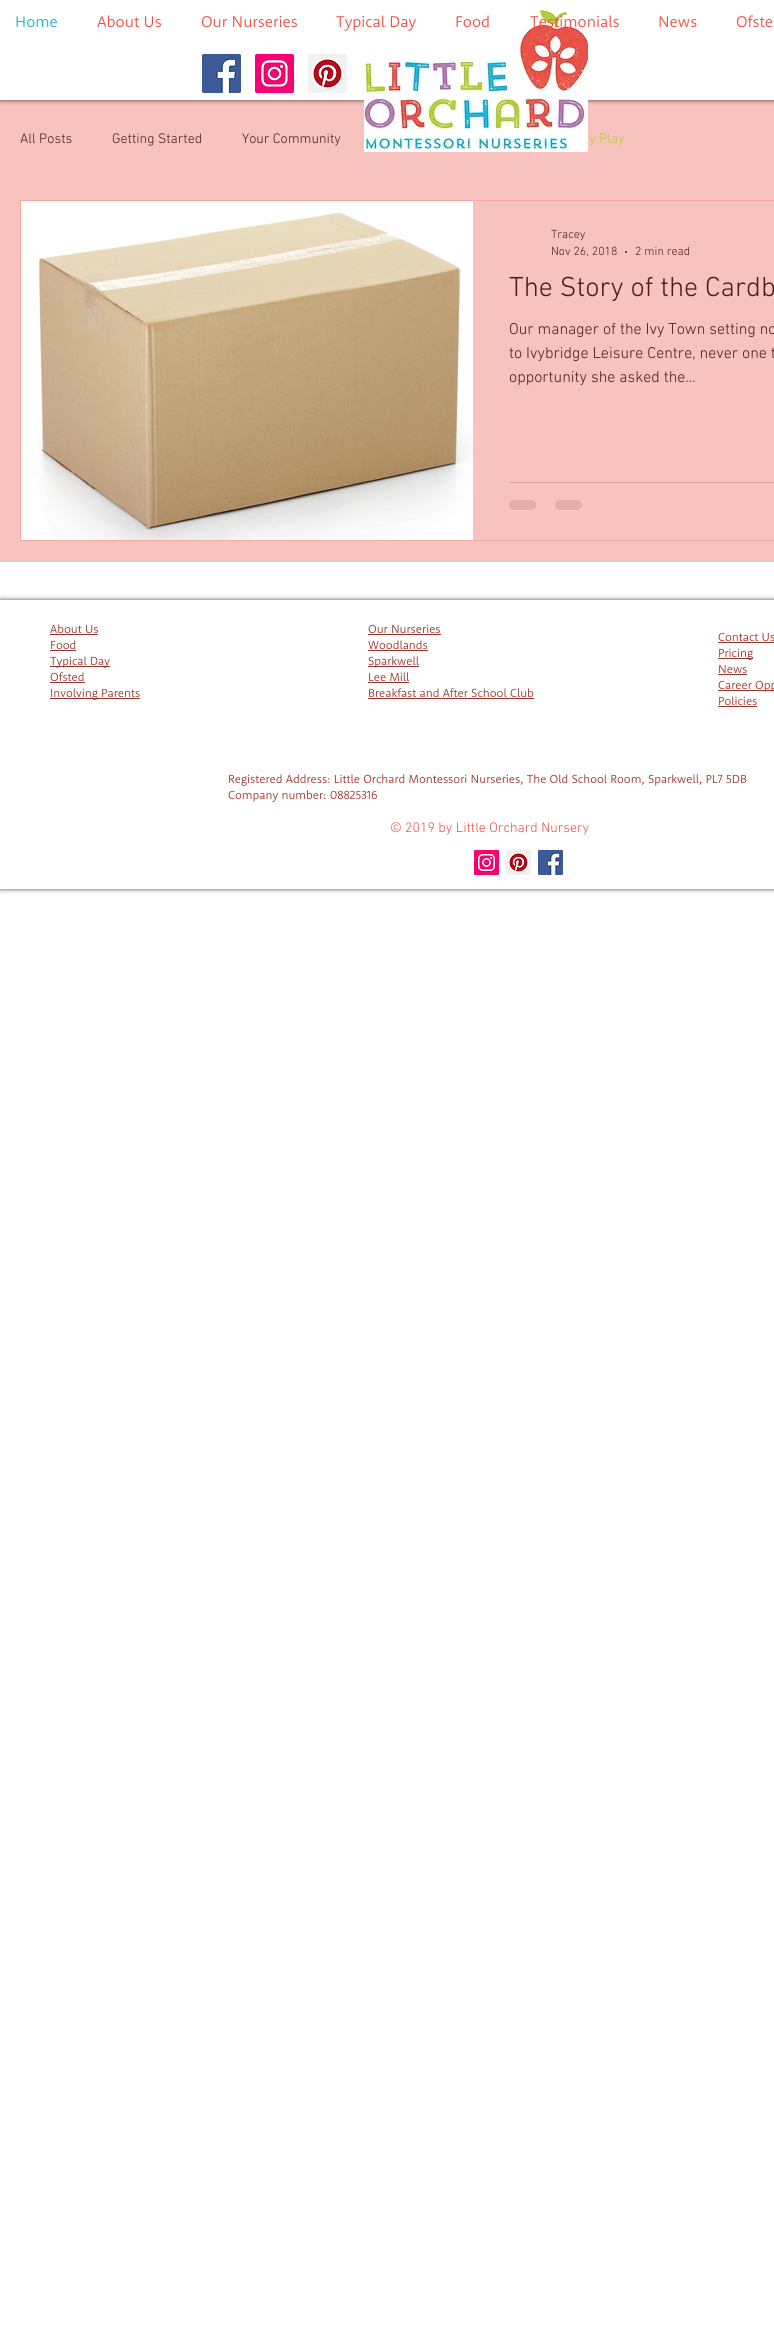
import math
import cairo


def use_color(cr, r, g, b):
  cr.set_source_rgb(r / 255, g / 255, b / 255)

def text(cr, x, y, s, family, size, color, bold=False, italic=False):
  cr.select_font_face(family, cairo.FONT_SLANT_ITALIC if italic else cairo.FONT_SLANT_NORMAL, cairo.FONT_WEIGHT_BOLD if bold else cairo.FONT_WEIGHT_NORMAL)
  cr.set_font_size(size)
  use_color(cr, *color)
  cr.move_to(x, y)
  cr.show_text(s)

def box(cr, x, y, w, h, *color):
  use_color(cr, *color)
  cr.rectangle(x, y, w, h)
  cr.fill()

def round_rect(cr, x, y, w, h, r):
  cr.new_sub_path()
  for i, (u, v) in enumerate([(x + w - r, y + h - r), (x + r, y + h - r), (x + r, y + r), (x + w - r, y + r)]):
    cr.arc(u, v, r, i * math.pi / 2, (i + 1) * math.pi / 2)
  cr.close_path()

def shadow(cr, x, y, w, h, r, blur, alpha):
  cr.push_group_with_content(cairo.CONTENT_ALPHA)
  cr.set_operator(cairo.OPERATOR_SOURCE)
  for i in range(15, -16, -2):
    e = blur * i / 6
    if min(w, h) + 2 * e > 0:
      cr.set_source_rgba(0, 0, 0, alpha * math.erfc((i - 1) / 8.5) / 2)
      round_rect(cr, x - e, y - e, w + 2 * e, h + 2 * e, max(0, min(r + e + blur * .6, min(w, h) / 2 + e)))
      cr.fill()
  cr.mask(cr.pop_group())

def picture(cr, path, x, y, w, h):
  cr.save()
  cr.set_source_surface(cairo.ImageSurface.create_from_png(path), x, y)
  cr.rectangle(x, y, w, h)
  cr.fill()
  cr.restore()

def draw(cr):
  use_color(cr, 255, 255, 255)
  cr.paint()
  box(cr, 0, 100, 774, 462, 248, 194, 190)
  use_color(cr, 0, 0, 0)
  shadow(cr, 0, 0, 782, 100, 0, 2.5, 0.7)
  box(cr, 0, 0, 774, 100, 255, 255, 255)
  picture(cr, "img_01.png", 364, 10, 224, 142)
  picture(cr, "img_02.png", 202, 54, 39, 39)
  picture(cr, "img_03.png", 255, 54, 39, 39)
  picture(cr, "img_04.png", 308, 54, 39, 39)
  cr.rectangle(20.5, 200.5, 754, 340)
  use_color(cr, 243, 170, 165)
  cr.set_line_width(1)
  cr.stroke()
  picture(cr, "img_05.png", 21, 201, 452, 339)
  use_color(cr, 78, 27, 23)
  cr.arc(626, 252, 1, 0, 2 * math.pi)
  cr.fill()
  box(cr, 509, 482, 265, 1, 214, 161, 157)
  use_color(cr, 228, 174, 170)
  round_rect(cr, 509, 500, 27, 10, 5)
  cr.fill()
  round_rect(cr, 555, 500, 27, 10, 5)
  cr.fill()
  cr.save()
  cr.set_fill_rule(cairo.FILL_RULE_EVEN_ODD)
  cr.new_path()
  cr.move_to(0, 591)
  cr.line_to(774, 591)
  cr.line_to(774, 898)
  cr.line_to(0, 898)
  cr.close_path()
  cr.move_to(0, 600)
  cr.line_to(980, 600)
  cr.line_to(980, 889)
  cr.line_to(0, 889)
  cr.close_path()
  cr.clip()
  use_color(cr, 0, 0, 0)
  shadow(cr, 0, 600, 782, 289, 0, 2.5, 0.7)
  cr.restore()
  box(cr, 50, 634, 48, 1, 156, 53, 46)
  box(cr, 50, 650, 26, 1, 156, 53, 46)
  box(cr, 50, 666, 60, 1, 156, 53, 46)
  box(cr, 50, 682, 35, 1, 156, 53, 46)
  box(cr, 50, 698, 90, 1, 156, 53, 46)
  box(cr, 368, 634, 73, 1, 156, 53, 46)
  box(cr, 368, 650, 60, 1, 156, 53, 46)
  box(cr, 368, 666, 51, 1, 156, 53, 46)
  box(cr, 368, 682, 41, 1, 156, 53, 46)
  box(cr, 368, 698, 166, 1, 156, 53, 46)
  box(cr, 718, 642, 56, 1, 156, 53, 46)
  box(cr, 718, 658, 35, 1, 156, 53, 46)
  box(cr, 718, 674, 29, 1, 156, 53, 46)
  box(cr, 718, 690, 56, 1, 156, 53, 46)
  box(cr, 718, 706, 39, 1, 156, 53, 46)
  picture(cr, "img_06.png", 474, 850, 25, 25)
  picture(cr, "img_07.png", 506, 850, 25, 25)
  picture(cr, "img_08.png", 538, 850, 25, 25)
  text(cr, 15, 27, "Home", "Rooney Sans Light", 16, (36, 175, 214))
  text(cr, 97, 27, "About Us", "Rooney Sans Light", 16, (234, 80, 69))
  text(cr, 201, 27, "Our Nurseries", "Rooney Sans Light", 16, (234, 80, 69))
  text(cr, 336, 27, "Typical Day", "Rooney Sans Light", 16, (234, 80, 69))
  text(cr, 455, 27, "Food", "Rooney Sans Light", 16, (234, 80, 69))
  text(cr, 530, 27, "Testimonials", "Rooney Sans Light", 16, (234, 80, 69))
  text(cr, 658, 27, "News", "Rooney Sans Light", 16, (234, 80, 69))
  text(cr, 736, 27, "Ofste", "Rooney Sans Light", 16, (234, 80, 69))
  text(cr, 20, 143, "All Posts", "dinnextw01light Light", 14, (78, 27, 23))
  text(cr, 112, 143, "Getting Started", "dinnextw01light Light", 14, (78, 27, 23))
  text(cr, 242, 143, "Your Community", "dinnextw01light Light", 14, (78, 27, 23))
  text(cr, 589, 143, "y Play", "dinnextw01light Light", 14, (178, 205, 53))
  text(cr, 551, 238, "Tracey", "dinnextw01light Light", 12, (78, 27, 23))
  text(cr, 551, 255, "Nov 26, 2018", "dinnextw01light Light", 12, (78, 27, 23))
  text(cr, 635, 255, "2 min read", "dinnextw01light Light", 12, (78, 27, 23))
  text(cr, 509, 296, "The Story of the Cardb", "dinnextw01light Light", 28, (78, 27, 23))
  text(cr, 509, 334, "Our manager of the Ivy Town setting no", "dinnextw01light Light", 16, (78, 27, 23))
  text(cr, 509, 358, "to Ivybridge Leisure Centre, never one t", "dinnextw01light Light", 16, (78, 27, 23))
  text(cr, 509, 382, "opportunity she asked the...", "dinnextw01light Light", 16, (78, 27, 23))
  text(cr, 50, 633, "About Us", "Rooney Sans Light", 12, (156, 53, 46))
  text(cr, 50, 649, "Food", "Rooney Sans Light", 12, (156, 53, 46))
  text(cr, 50, 665, "Typical Day", "Rooney Sans Light", 12, (156, 53, 46))
  text(cr, 50, 681, "Ofsted", "Rooney Sans Light", 12, (156, 53, 46))
  text(cr, 50, 697, "Involving Parents", "Rooney Sans Light", 12, (156, 53, 46))
  text(cr, 368, 633, "Our Nurseries", "Rooney Sans Light", 12, (156, 53, 46))
  text(cr, 368, 649, "Woodlands", "Rooney Sans Light", 12, (156, 53, 46))
  text(cr, 368, 665, "Sparkwell", "Rooney Sans Light", 12, (156, 53, 46))
  text(cr, 368, 681, "Lee Mill", "Rooney Sans Light", 12, (156, 53, 46))
  text(cr, 368, 697, "Breakfast and After School Club", "Rooney Sans Light", 12, (156, 53, 46))
  text(cr, 718, 641, "Contact Us", "Rooney Sans Light", 12, (156, 53, 46))
  text(cr, 718, 657, "Pricing", "Rooney Sans Light", 12, (156, 53, 46))
  text(cr, 718, 673, "News", "Rooney Sans Light", 12, (156, 53, 46))
  text(cr, 718, 689, "Career Opp", "Rooney Sans Light", 12, (156, 53, 46))
  text(cr, 718, 705, "Policies", "Rooney Sans Light", 12, (156, 53, 46))
  text(cr, 228, 783, "Registered Address: Little Orchard Montessori Nurseries, The Old School Room, Sparkwell, PL7 5DB", "Rooney Sans Light", 12, (156, 53, 46))
  text(cr, 228, 799, "Company number: 08825316", "Rooney Sans Light", 12, (156, 53, 46))
  text(cr, 390, 832, "© 2019 by Little Orchard Nursery", "dinnextw01light Light", 14, (234, 80, 69))


surface = cairo.ImageSurface(cairo.FORMAT_RGB24, 774, 2325)
cr = cairo.Context(surface)
options = cairo.FontOptions()
options.set_hint_metrics(cairo.HINT_METRICS_OFF)
options.set_hint_style(cairo.HINT_STYLE_NONE)
cr.set_font_options(options)
cr.set_miter_limit(4)
draw(cr)
surface.write_to_png("out.png")
